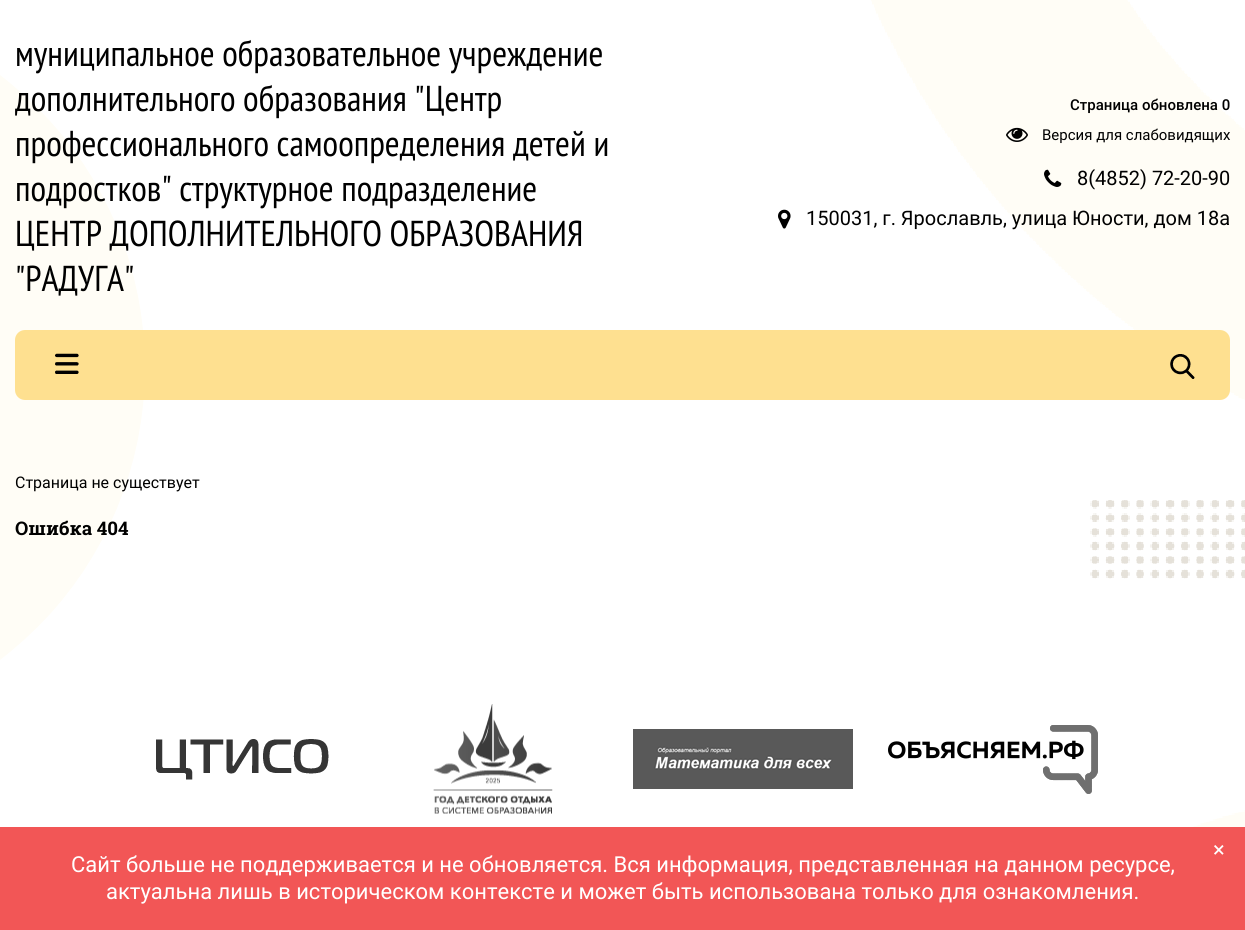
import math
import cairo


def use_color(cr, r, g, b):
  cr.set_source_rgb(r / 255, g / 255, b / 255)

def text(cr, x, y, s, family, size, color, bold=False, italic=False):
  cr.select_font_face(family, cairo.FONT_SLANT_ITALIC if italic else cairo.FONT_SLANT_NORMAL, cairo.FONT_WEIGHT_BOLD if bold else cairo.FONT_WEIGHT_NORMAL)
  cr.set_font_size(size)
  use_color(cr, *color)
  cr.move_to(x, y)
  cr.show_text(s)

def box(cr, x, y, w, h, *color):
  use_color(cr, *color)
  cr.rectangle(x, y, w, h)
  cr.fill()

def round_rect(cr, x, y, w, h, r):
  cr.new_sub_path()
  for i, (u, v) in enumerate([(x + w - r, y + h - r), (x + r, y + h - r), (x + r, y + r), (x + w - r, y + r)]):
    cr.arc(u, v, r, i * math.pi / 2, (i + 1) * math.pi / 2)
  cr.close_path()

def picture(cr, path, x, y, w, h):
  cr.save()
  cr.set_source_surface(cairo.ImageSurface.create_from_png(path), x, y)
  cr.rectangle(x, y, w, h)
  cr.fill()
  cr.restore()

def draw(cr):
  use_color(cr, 255, 255, 255)
  cr.paint()
  picture(cr, "img_01.png", 0, 0, 1245, 827)
  picture(cr, "img_02.png", 1006, 127, 22, 15)
  picture(cr, "img_03.png", 1044, 169, 18, 18)
  picture(cr, "img_04.png", 778, 209, 13, 20)
  use_color(cr, 254, 224, 144)
  round_rect(cr, 15, 330, 1215, 70, 10)
  cr.fill()
  picture(cr, "img_05.png", 55, 353, 24, 21)
  picture(cr, "img_06.png", 1170, 354, 25, 25)
  picture(cr, "img_07.png", 156, 739, 173, 41)
  picture(cr, "img_08.png", 433, 704, 120, 110)
  picture(cr, "img_09.png", 633, 729, 220, 60)
  picture(cr, "img_10.png", 888, 725, 210, 69)
  box(cr, 0, 827, 1245, 103, 242, 86, 86)
  text(cr, 15, 66, "муниципальное образовательное учреждение", "PT Sans Narrow", 36, (0, 0, 0))
  text(cr, 15, 111, "дополнительного образования \"Центр", "PT Sans Narrow", 36, (0, 0, 0))
  text(cr, 15, 156, "профессионального самоопределения детей и", "PT Sans Narrow", 36, (0, 0, 0))
  text(cr, 15, 201, "подростков\" структурное подразделение", "PT Sans Narrow", 36, (0, 0, 0))
  text(cr, 15, 246, "ЦЕНТР ДОПОЛНИТЕЛЬНОГО ОБРАЗОВАНИЯ", "PT Sans Narrow", 36, (0, 0, 0))
  text(cr, 15, 291, "\"РАДУГА\"", "PT Sans Narrow", 36, (0, 0, 0))
  text(cr, 1070, 110, "Страница обновлена 0", "Roboto Medium", 15, (0, 0, 0))
  text(cr, 1042, 140, "Версия для слабовидящих", "Roboto", 15, (0, 0, 0))
  text(cr, 1077, 185, "8(4852) 72-20-90", "Roboto", 20, (0, 0, 0))
  text(cr, 806, 225, "150031, г. Ярославль, улица Юности, дом 18а", "Roboto", 20, (0, 0, 0))
  text(cr, 15, 488, "Страница не существует", "Roboto", 16, (0, 0, 0))
  text(cr, 15, 535, "Ошибка 404", "Roboto Slab", 18.75, (0, 0, 0), bold=True)
  text(cr, 1213, 857, "×", "Roboto", 22, (255, 255, 255))
  text(cr, 71, 872, "Сайт больше не поддерживается и не обновляется. Вся информация, представленная на данном ресурсе,", "Roboto", 22, (255, 255, 255))
  text(cr, 106, 899, "актуальна лишь в историческом контексте и может быть использована только для ознакомления.", "Roboto", 22, (255, 255, 255))


surface = cairo.ImageSurface(cairo.FORMAT_RGB24, 1245, 930)
cr = cairo.Context(surface)
options = cairo.FontOptions()
options.set_hint_metrics(cairo.HINT_METRICS_OFF)
options.set_hint_style(cairo.HINT_STYLE_NONE)
cr.set_font_options(options)
cr.set_miter_limit(4)
draw(cr)
surface.write_to_png("out.png")
